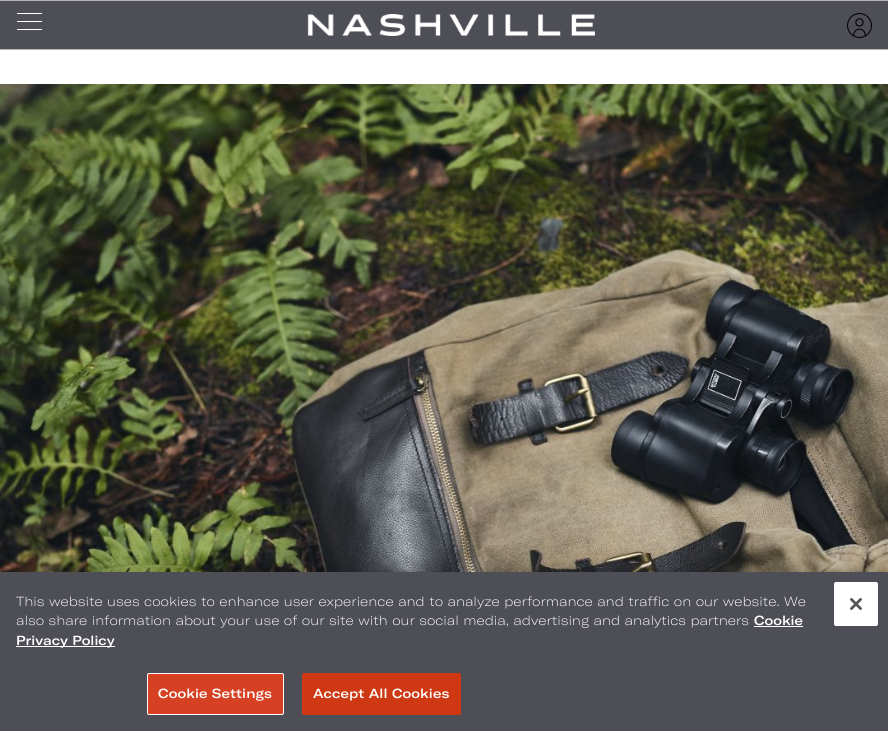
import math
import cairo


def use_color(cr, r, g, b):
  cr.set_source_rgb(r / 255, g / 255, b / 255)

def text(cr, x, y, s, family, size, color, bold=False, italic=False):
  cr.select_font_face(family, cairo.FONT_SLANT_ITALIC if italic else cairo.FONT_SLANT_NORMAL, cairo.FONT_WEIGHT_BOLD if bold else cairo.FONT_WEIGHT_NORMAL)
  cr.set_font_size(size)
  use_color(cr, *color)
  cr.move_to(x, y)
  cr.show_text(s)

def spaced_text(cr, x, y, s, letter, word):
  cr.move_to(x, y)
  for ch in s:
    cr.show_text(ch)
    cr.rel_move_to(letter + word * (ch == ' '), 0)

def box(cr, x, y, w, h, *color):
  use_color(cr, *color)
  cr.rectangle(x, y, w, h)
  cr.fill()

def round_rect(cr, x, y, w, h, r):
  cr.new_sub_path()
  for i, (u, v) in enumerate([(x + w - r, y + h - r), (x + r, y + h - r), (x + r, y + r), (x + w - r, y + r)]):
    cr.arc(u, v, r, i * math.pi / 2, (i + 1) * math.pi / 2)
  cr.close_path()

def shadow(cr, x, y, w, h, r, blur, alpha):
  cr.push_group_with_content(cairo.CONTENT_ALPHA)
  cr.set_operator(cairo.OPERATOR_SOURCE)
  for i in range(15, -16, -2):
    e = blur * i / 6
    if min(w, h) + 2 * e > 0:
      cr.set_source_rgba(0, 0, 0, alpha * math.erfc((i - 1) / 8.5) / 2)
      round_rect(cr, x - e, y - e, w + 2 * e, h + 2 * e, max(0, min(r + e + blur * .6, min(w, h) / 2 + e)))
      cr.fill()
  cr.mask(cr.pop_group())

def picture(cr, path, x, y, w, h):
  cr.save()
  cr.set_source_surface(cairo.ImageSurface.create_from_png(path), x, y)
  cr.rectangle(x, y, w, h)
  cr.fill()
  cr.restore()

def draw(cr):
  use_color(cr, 255, 255, 255)
  cr.paint()
  box(cr, 0, 1, 888, 48, 77, 78, 86)
  box(cr, 0, 0, 888, 1, 181, 181, 181)
  box(cr, 0, 49, 888, 1, 181, 181, 181)
  box(cr, 17, 13, 25, 1, 255, 255, 255)
  box(cr, 17, 21, 25, 1, 255, 255, 255)
  box(cr, 17, 29, 25, 1, 255, 255, 255)
  picture(cr, "img_01.png", 307, 14, 288, 22)
  picture(cr, "img_02.png", 847, 13, 25, 25)
  picture(cr, "img_03.png", 0, 84, 888, 488)
  use_color(cr, 0, 0, 0)
  shadow(cr, 0, 572, 888, 159, 0, 9, 0.2)
  box(cr, 0, 572, 888, 159, 77, 78, 86)
  box(cr, 754, 626, 49, 1, 255, 255, 255)
  box(cr, 16, 646, 99, 1, 255, 255, 255)
  use_color(cr, 214, 65, 35)
  round_rect(cr, 147.5, 673.5, 136, 41, 1.5)
  cr.fill_preserve()
  use_color(cr, 255, 255, 255)
  cr.set_line_width(1)
  cr.stroke()
  use_color(cr, 206, 57, 20)
  round_rect(cr, 302.5, 673.5, 158, 41, 1.5)
  cr.fill_preserve()
  cr.stroke()
  use_color(cr, 255, 255, 255)
  round_rect(cr, 834, 582, 44, 44, 2)
  cr.fill()
  picture(cr, "img_04.png", 850, 598, 12, 12)
  text(cr, 16, 606, "This website uses cookies to enhance user experience and to analyze performance and traffic on our website. We", "GT America Light", 13, (255, 255, 255))
  text(cr, 16, 625, "also share information about your use of our site with our social media, advertising and analytics partners", "GT America Light", 13, (255, 255, 255))
  text(cr, 754, 625, "Cookie", "GT America Medium", 13, (255, 255, 255))
  text(cr, 16, 645, "Privacy Policy", "GT America Medium", 13, (255, 255, 255))
  spaced_text(cr, 158, 698, "Cookie Settings", 0.1, 0)
  spaced_text(cr, 313, 698, "Accept All Cookies", 0.1, 0)


surface = cairo.ImageSurface(cairo.FORMAT_RGB24, 888, 731)
cr = cairo.Context(surface)
options = cairo.FontOptions()
options.set_hint_metrics(cairo.HINT_METRICS_OFF)
options.set_hint_style(cairo.HINT_STYLE_NONE)
cr.set_font_options(options)
cr.set_miter_limit(4)
draw(cr)
surface.write_to_png("out.png")
